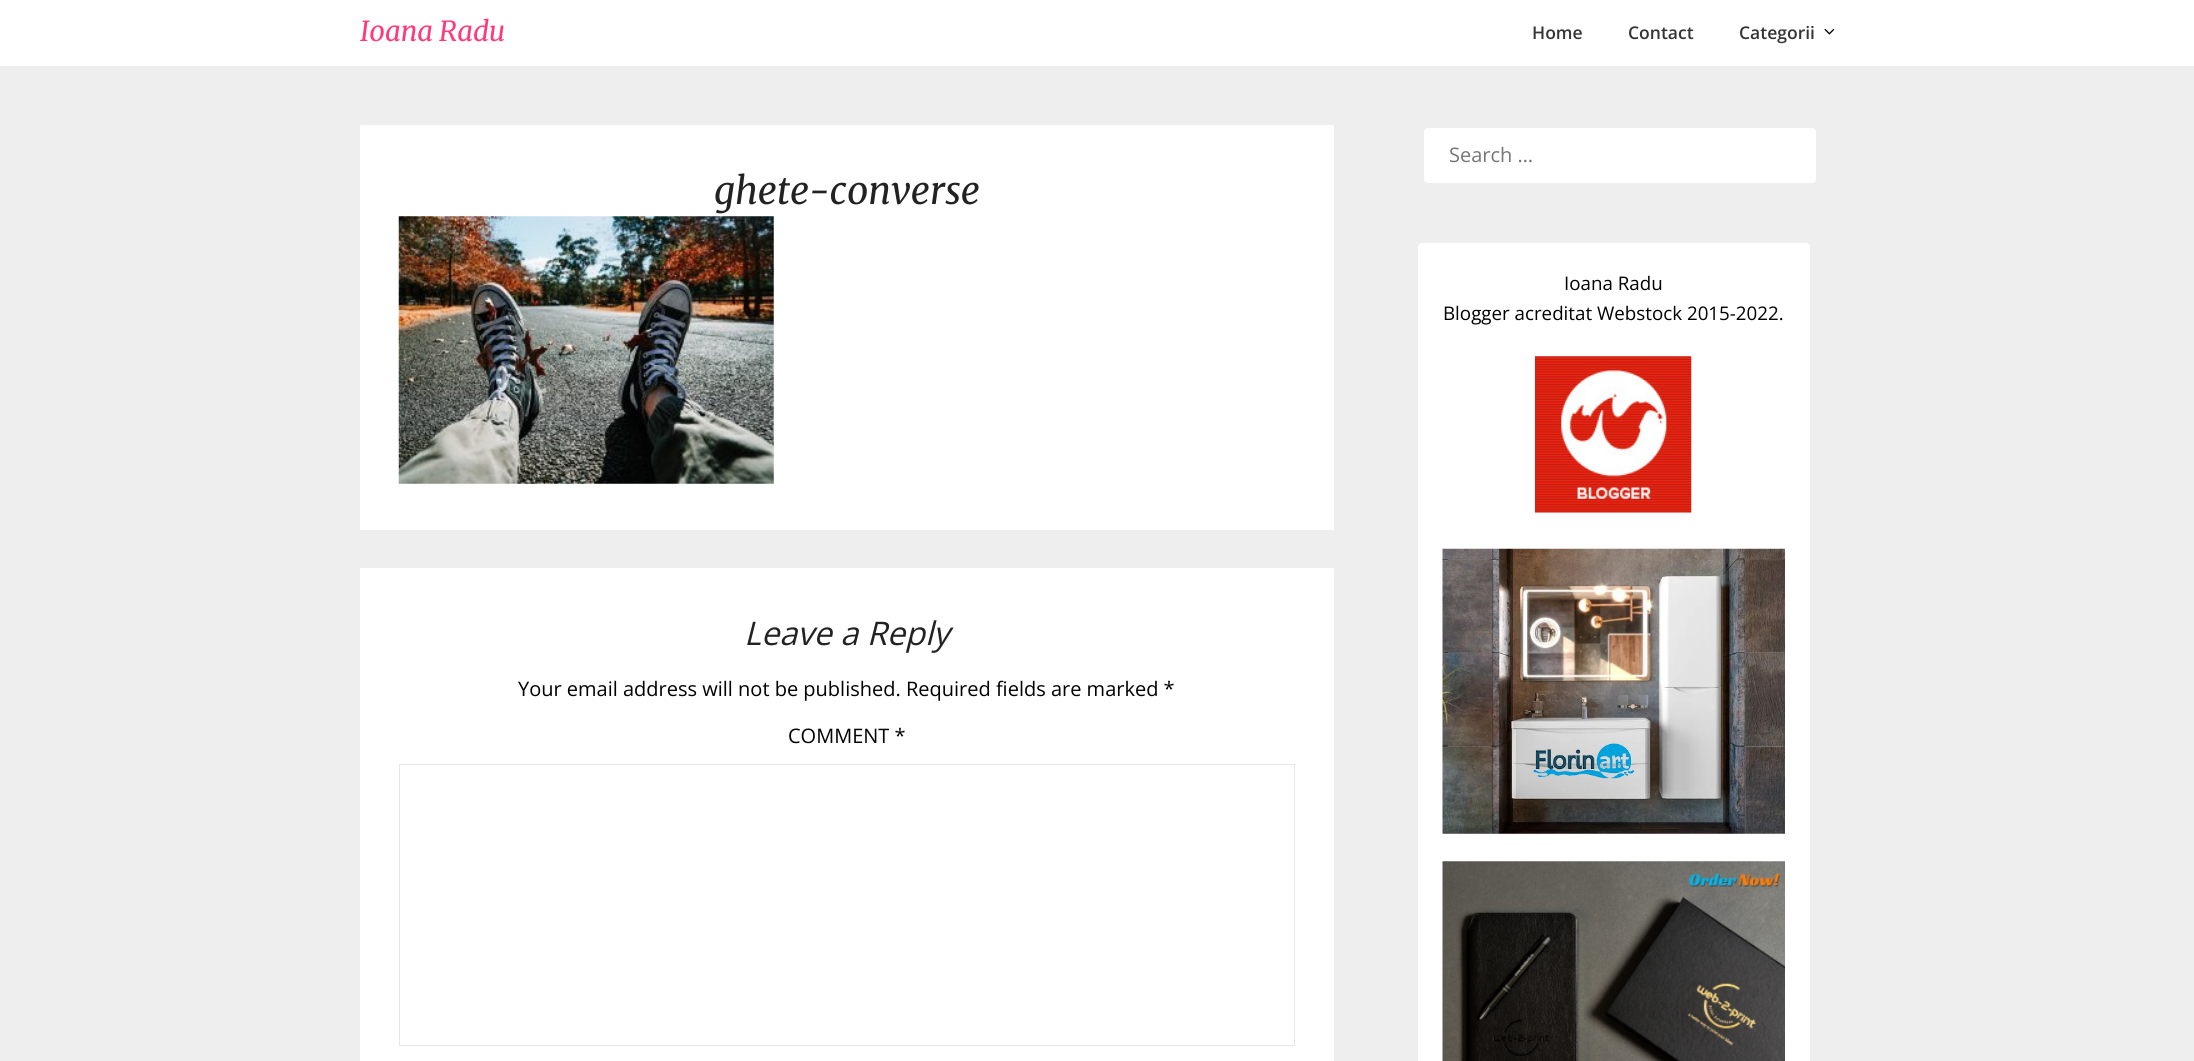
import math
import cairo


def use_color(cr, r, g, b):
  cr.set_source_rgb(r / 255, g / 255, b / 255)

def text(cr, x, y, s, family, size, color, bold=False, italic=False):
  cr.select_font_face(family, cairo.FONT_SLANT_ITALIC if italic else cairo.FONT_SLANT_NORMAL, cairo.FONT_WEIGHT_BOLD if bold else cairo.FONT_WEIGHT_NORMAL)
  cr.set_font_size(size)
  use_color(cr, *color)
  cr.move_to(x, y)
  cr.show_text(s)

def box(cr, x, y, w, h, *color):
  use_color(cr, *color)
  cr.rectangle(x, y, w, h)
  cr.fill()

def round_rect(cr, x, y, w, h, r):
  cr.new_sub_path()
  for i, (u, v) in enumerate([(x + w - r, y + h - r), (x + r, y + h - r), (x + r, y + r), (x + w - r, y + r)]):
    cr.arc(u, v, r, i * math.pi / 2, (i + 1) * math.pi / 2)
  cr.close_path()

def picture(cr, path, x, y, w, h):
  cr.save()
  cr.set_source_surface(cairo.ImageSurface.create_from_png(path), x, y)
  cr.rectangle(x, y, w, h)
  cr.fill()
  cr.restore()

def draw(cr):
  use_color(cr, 238, 238, 238)
  cr.paint()
  box(cr, 0, 0, 2194, 66, 255, 255, 255)
  picture(cr, "img_01.png", 1824, 28, 11, 7)
  round_rect(cr, 360, 125, 974, 405, 1)
  cr.fill()
  picture(cr, "img_02.png", 398, 216, 376, 268)
  round_rect(cr, 360, 568, 974, 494, 1)
  cr.fill()
  cr.rectangle(399.5, 764.5, 895, 281)
  use_color(cr, 229, 230, 233)
  cr.set_line_width(1)
  cr.stroke()
  use_color(cr, 255, 255, 255)
  round_rect(cr, 1424, 128, 392, 55, 4)
  cr.fill()
  round_rect(cr, 1418, 243, 392, 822, 4)
  cr.fill()
  picture(cr, "img_03.png", 1535, 356, 157, 157)
  picture(cr, "img_04.png", 1442, 548, 343, 286)
  picture(cr, "img_05.png", 1442, 861, 343, 200)
  text(cr, 360, 41, "Ioana Radu", "Merriweather Light", 27.5, (255, 58, 124), italic=True)
  text(cr, 1532, 39, "Home", "Open Sans SemiBold", 17.5, (53, 53, 53))
  text(cr, 1628, 39, "Contact", "Open Sans SemiBold", 17.5, (53, 53, 53))
  text(cr, 1739, 39, "Categorii", "Open Sans SemiBold", 17.5, (53, 53, 53))
  text(cr, 714, 204, "ghete-converse", "Merriweather Light", 37.5, (34, 34, 34), italic=True)
  text(cr, 744, 645, "Leave a Reply", "Open Sans", 32.5, (34, 34, 34), italic=True)
  text(cr, 518, 696, "Your email address will not be published. Required fields are marked *", "Open Sans", 20, (0, 0, 0))
  text(cr, 788, 743, "COMMENT *", "Open Sans", 20, (0, 0, 0))
  text(cr, 1449, 162, "Search …", "Open Sans", 20, (117, 117, 117))
  text(cr, 1564, 290, "Ioana Radu", "Open Sans", 18.75, (0, 0, 0))
  text(cr, 1443, 320, "Blogger acreditat Webstock 2015-2022.", "Open Sans", 18.75, (0, 0, 0))


surface = cairo.ImageSurface(cairo.FORMAT_RGB24, 2194, 1061)
cr = cairo.Context(surface)
options = cairo.FontOptions()
options.set_hint_metrics(cairo.HINT_METRICS_OFF)
options.set_hint_style(cairo.HINT_STYLE_NONE)
cr.set_font_options(options)
cr.set_miter_limit(4)
draw(cr)
surface.write_to_png("out.png")
